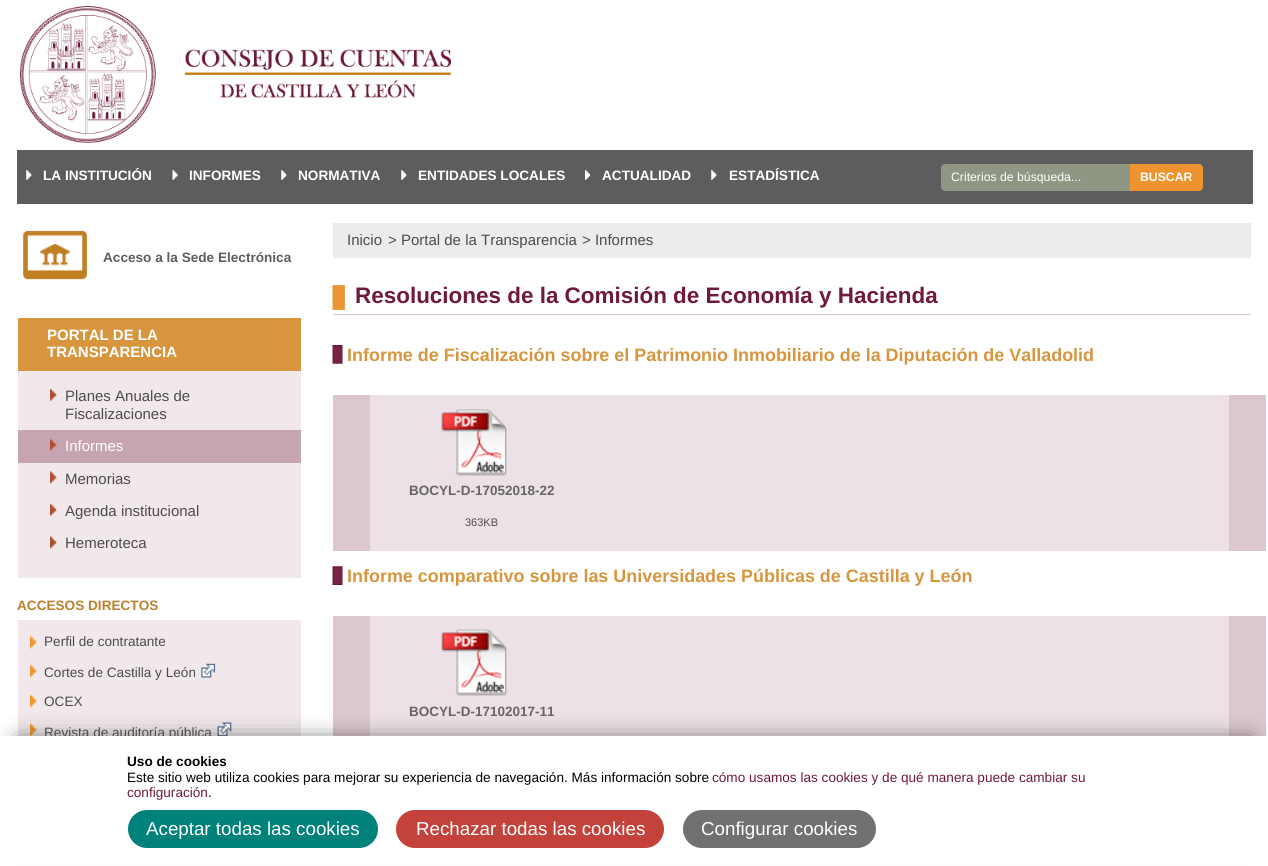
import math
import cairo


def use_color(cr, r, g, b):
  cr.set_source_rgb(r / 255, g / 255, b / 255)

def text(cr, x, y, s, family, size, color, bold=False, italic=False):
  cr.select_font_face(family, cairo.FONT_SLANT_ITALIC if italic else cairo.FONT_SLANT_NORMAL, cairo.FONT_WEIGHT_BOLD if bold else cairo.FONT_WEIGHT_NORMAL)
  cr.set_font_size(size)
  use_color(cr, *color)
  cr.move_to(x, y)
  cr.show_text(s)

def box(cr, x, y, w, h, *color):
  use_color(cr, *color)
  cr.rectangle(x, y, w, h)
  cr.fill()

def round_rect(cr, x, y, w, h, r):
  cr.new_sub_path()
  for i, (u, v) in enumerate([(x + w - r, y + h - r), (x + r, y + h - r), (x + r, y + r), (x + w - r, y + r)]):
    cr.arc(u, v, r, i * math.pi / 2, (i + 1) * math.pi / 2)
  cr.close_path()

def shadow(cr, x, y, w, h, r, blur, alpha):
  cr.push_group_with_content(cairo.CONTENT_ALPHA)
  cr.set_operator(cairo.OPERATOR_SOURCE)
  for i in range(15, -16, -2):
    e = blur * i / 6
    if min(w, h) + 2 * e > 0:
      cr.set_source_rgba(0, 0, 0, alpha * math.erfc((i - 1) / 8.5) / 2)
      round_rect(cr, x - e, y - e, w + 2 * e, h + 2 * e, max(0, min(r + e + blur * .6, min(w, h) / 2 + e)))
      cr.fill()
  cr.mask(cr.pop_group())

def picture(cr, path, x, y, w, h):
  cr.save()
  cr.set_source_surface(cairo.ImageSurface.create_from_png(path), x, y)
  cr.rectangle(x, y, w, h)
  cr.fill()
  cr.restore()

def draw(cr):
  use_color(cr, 255, 255, 255)
  cr.paint()
  picture(cr, "img_01.png", 20, 6, 431, 137)
  box(cr, 17, 150, 1236, 54, 93, 93, 93)
  picture(cr, "img_02.png", 26, 170, 6, 10)
  picture(cr, "img_03.png", 172, 170, 6, 10)
  picture(cr, "img_02.png", 281, 170, 6, 10)
  picture(cr, "img_02.png", 401, 170, 6, 10)
  picture(cr, "img_04.png", 585, 170, 5, 10)
  picture(cr, "img_02.png", 711, 170, 6, 10)
  use_color(cr, 143, 150, 132)
  cr.new_path()
  cr.move_to(945, 164)
  cr.line_to(1130, 164)
  cr.line_to(1130, 191)
  cr.line_to(945, 191)
  cr.curve_to(943, 191, 941, 189, 941, 187)
  cr.line_to(941, 168)
  cr.curve_to(941, 166, 943, 164, 945, 164)
  cr.close_path()
  cr.fill()
  use_color(cr, 239, 147, 48)
  cr.new_path()
  cr.move_to(1130, 164)
  cr.line_to(1199, 164)
  cr.curve_to(1201, 164, 1203, 166, 1203, 168)
  cr.line_to(1203, 187)
  cr.curve_to(1203, 189, 1201, 191, 1199, 191)
  cr.line_to(1130, 191)
  cr.close_path()
  cr.fill()
  picture(cr, "img_05.png", 23, 230, 64, 50)
  box(cr, 18, 318, 283, 53, 215, 149, 62)
  box(cr, 18, 371, 283, 207, 241, 232, 235)
  picture(cr, "img_06.png", 50, 388, 7, 14)
  box(cr, 18, 430, 283, 33, 198, 164, 178)
  picture(cr, "img_07.png", 50, 438, 7, 14)
  picture(cr, "img_08.png", 50, 471, 7, 13)
  picture(cr, "img_06.png", 50, 503, 7, 14)
  picture(cr, "img_08.png", 50, 536, 7, 13)
  box(cr, 18, 620, 283, 116, 240, 232, 235)
  picture(cr, "img_09.png", 30, 635, 7, 14)
  picture(cr, "img_10.png", 30, 663, 7, 15)
  picture(cr, "img_11.png", 201, 663, 15, 15)
  picture(cr, "img_10.png", 30, 693, 7, 15)
  picture(cr, "img_12.png", 30, 722, 7, 14)
  picture(cr, "img_13.png", 217, 722, 15, 14)
  box(cr, 333, 223, 918, 35, 236, 236, 236)
  picture(cr, "img_14.png", 332, 285, 13, 25)
  box(cr, 333, 314, 918, 1, 218, 195, 205)
  picture(cr, "img_15.png", 332, 345, 11, 19)
  box(cr, 333, 395, 933, 156, 220, 199, 208)
  box(cr, 370, 395, 859, 156, 236, 225, 230)
  picture(cr, "img_16.png", 441, 409, 66, 67)
  picture(cr, "img_17.png", 332, 566, 11, 19)
  box(cr, 333, 616, 933, 120, 220, 199, 208)
  box(cr, 370, 616, 859, 120, 236, 225, 230)
  picture(cr, "img_16.png", 441, 629, 66, 67)
  use_color(cr, 0, 0, 0)
  shadow(cr, 19, 743, 1231, 92, 0, 12.5, 0.75)
  text(cr, 43, 180, "LA INSTITUCIÓN", "Liberation Sans", 13.6, (255, 255, 255), bold=True)
  text(cr, 189, 180, "INFORMES", "Liberation Sans", 13.6, (255, 255, 255), bold=True)
  text(cr, 298, 180, "NORMATIVA", "Liberation Sans", 13.6, (255, 255, 255), bold=True)
  text(cr, 418, 180, "ENTIDADES LOCALES", "Liberation Sans", 13.6, (255, 255, 255), bold=True)
  text(cr, 602, 180, "ACTUALIDAD", "Liberation Sans", 13.6, (255, 255, 255), bold=True)
  text(cr, 729, 180, "ESTADÍSTICA", "Liberation Sans", 13.6, (255, 255, 255), bold=True)
  text(cr, 951, 181, "Criterios de búsqueda...", "Liberation Sans", 12.25, (255, 255, 255))
  text(cr, 1140, 181, "BUSCAR", "Liberation Sans", 12.25, (255, 255, 255), bold=True)
  text(cr, 103, 262, "Acceso a la Sede Electrónica", "Liberation Sans", 13.6, (93, 93, 93), bold=True)
  text(cr, 47, 340, "PORTAL DE LA", "Liberation Sans", 15, (255, 255, 255), bold=True)
  text(cr, 47, 357, "TRANSPARENCIA", "Liberation Sans", 15, (255, 255, 255), bold=True)
  text(cr, 65, 401, "Planes Anuales de", "Liberation Sans", 15, (77, 75, 76))
  text(cr, 65, 419, "Fiscalizaciones", "Liberation Sans", 15, (77, 75, 76))
  text(cr, 65, 451, "Informes", "Liberation Sans", 15, (255, 255, 255))
  text(cr, 65, 484, "Memorias", "Liberation Sans", 15, (77, 75, 76))
  text(cr, 65, 516, "Agenda institucional", "Liberation Sans", 15, (77, 75, 76))
  text(cr, 65, 548, "Hemeroteca", "Liberation Sans", 15, (77, 75, 76))
  text(cr, 17, 610, "ACCESOS DIRECTOS", "Liberation Sans", 13.6, (188, 127, 46), bold=True)
  text(cr, 44, 646, "Perfil de contratante", "Liberation Sans", 13.6, (77, 75, 76))
  text(cr, 44, 677, "Cortes de Castilla y León", "Liberation Sans", 13.6, (77, 75, 76))
  text(cr, 44, 706, "OCEX", "Liberation Sans", 13.6, (77, 75, 76))
  text(cr, 44, 737, "Revista de auditoría pública", "Liberation Sans", 13.6, (77, 75, 76))
  text(cr, 347, 245, "Inicio", "Liberation Sans", 15, (77, 75, 76))
  text(cr, 388, 245, "> Portal de la Transparencia", "Liberation Sans", 15, (77, 75, 76))
  text(cr, 582, 245, "> Informes", "Liberation Sans", 15, (77, 75, 76))
  text(cr, 355, 303, "Resoluciones de la Comisión de Economía y Hacienda", "Liberation Sans", 22.45, (112, 25, 60), bold=True)
  text(cr, 347, 361, "Informe de Fiscalización sobre el Patrimonio Inmobiliario de la Diputación de Valladolid", "Liberation Sans", 17.95, (215, 149, 61), bold=True)
  text(cr, 409, 495, "BOCYL-D-17052018-22", "Liberation Sans", 13.5, (102, 102, 102), bold=True)
  text(cr, 465, 526, "363KB", "Liberation Sans", 11, (77, 75, 76))
  text(cr, 347, 582, "Informe comparativo sobre las Universidades Públicas de Castilla y León", "Liberation Sans", 17.95, (215, 149, 61), bold=True)
  text(cr, 409, 716, "BOCYL-D-17102017-11", "Liberation Sans", 13.5, (102, 102, 102), bold=True)
  box(cr, 0, 736, 1268, 127, 255, 255, 255)
  text(cr, 127, 766, "Uso de cookies", "Liberation Sans", 13.6, (0, 0, 0), bold=True)
  text(cr, 127, 782, "Este sitio web utiliza cookies para mejorar su experiencia de navegación. Más información sobre", "Liberation Sans", 13.6, (0, 0, 0))
  text(cr, 712, 782, "cómo usamos las cookies y de qué manera puede cambiar su", "Liberation Sans", 13.6, (112, 25, 60))
  text(cr, 127, 797, "configuración", "Liberation Sans", 13.6, (112, 25, 60))
  text(cr, 208, 797, ".", "Liberation Sans", 13.6, (0, 0, 0))
  use_color(cr, 0, 130, 123)
  round_rect(cr, 128, 810, 250, 38, 19)
  cr.fill()
  text(cr, 146, 835, "Aceptar todas las cookies", "Liberation Sans", 18.75, (255, 255, 255))
  use_color(cr, 196, 66, 60)
  round_rect(cr, 396, 810, 268, 38, 19)
  cr.fill()
  text(cr, 416, 835, "Rechazar todas las cookies", "Liberation Sans", 18.75, (255, 255, 255))
  use_color(cr, 114, 112, 112)
  round_rect(cr, 683, 810, 193, 38, 19)
  cr.fill()
  text(cr, 701, 835, "Configurar cookies", "Liberation Sans", 18.75, (255, 255, 255))


surface = cairo.ImageSurface(cairo.FORMAT_RGB24, 1268, 866)
cr = cairo.Context(surface)
options = cairo.FontOptions()
options.set_hint_metrics(cairo.HINT_METRICS_OFF)
options.set_hint_style(cairo.HINT_STYLE_NONE)
cr.set_font_options(options)
cr.set_miter_limit(4)
draw(cr)
surface.write_to_png("out.png")
